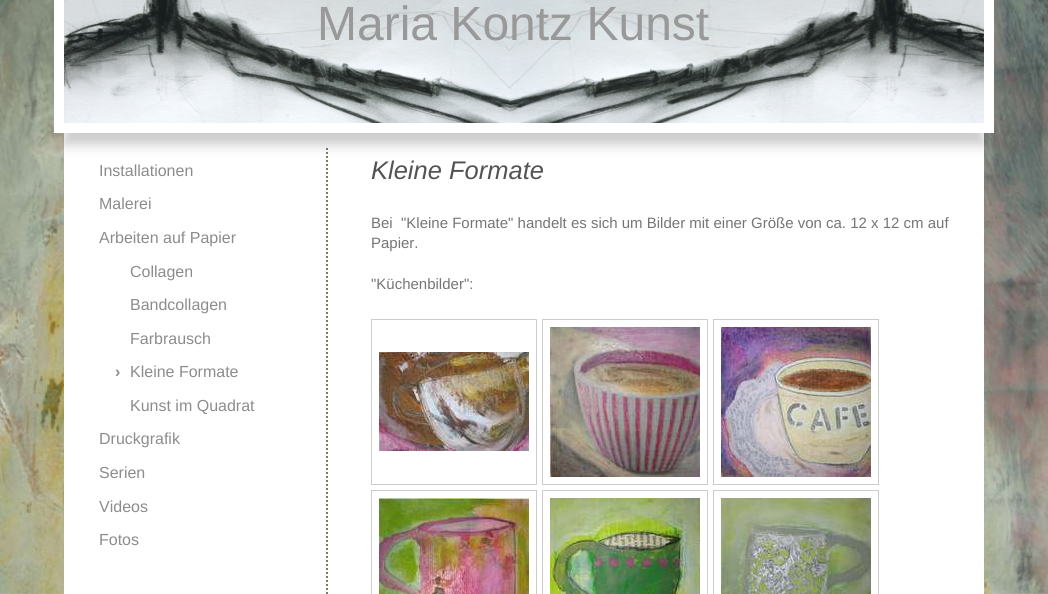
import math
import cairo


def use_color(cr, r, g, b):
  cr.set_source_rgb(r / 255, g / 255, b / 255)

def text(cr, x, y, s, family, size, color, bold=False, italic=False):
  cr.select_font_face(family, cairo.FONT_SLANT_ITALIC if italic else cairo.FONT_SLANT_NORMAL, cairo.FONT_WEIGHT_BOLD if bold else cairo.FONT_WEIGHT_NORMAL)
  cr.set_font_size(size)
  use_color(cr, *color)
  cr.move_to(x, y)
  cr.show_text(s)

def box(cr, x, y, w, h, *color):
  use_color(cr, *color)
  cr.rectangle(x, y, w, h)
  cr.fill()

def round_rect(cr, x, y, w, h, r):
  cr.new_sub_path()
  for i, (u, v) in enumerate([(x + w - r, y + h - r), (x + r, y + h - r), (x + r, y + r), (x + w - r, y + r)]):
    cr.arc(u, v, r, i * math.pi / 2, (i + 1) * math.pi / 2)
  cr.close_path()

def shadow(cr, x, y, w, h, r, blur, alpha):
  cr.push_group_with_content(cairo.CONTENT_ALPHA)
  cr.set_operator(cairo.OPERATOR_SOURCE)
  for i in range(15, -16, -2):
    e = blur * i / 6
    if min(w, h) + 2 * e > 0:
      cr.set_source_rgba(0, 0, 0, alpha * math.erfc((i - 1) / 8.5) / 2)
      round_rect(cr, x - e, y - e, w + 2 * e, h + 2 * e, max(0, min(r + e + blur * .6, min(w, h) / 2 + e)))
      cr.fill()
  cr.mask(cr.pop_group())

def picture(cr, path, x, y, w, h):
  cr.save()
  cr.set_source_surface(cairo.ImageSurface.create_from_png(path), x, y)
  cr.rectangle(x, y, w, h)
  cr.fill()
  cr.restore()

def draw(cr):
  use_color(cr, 255, 255, 255)
  cr.paint()
  picture(cr, "img_01.png", 0, 0, 1048, 594)
  box(cr, 64, 133, 920, 461, 255, 255, 255)
  cr.new_path()
  cr.move_to(327, 148)
  cr.line_to(327, 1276)
  use_color(cr, 128, 122, 104)
  cr.set_dash([2, 2])
  cr.stroke()
  use_color(cr, 0, 0, 0)
  shadow(cr, 64, -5, 920, 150, 0, 6, 0.2)
  cr.rectangle(59, -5, 930, 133)
  use_color(cr, 255, 255, 255)
  cr.set_line_width(10)
  cr.set_dash([])
  cr.stroke()
  picture(cr, "img_02.png", 64, 0, 920, 123)
  cr.rectangle(371.5, 319.5, 165, 165)
  use_color(cr, 204, 204, 204)
  cr.set_line_width(1)
  cr.stroke()
  picture(cr, "img_03.png", 379, 352, 150, 99)
  cr.rectangle(542.5, 319.5, 165, 165)
  cr.stroke()
  picture(cr, "img_04.png", 550, 327, 150, 150)
  cr.rectangle(713.5, 319.5, 165, 165)
  cr.stroke()
  picture(cr, "img_05.png", 721, 327, 150, 150)
  cr.rectangle(371.5, 490.5, 165, 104)
  cr.stroke()
  picture(cr, "img_06.png", 379, 498, 150, 96)
  cr.rectangle(542.5, 490.5, 165, 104)
  cr.stroke()
  picture(cr, "img_07.png", 550, 498, 150, 96)
  cr.rectangle(713.5, 490.5, 165, 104)
  cr.stroke()
  picture(cr, "img_08.png", 721, 498, 150, 96)
  text(cr, 317, 40, "Maria Kontz Kunst", "Liberation Sans", 48, (153, 153, 153))
  text(cr, 99, 176, "Installationen", "Liberation Sans", 16, (140, 140, 140))
  text(cr, 99, 209, "Malerei", "Liberation Sans", 16, (140, 140, 140))
  text(cr, 99, 243, "Arbeiten auf Papier", "Liberation Sans", 16, (140, 140, 140))
  text(cr, 130, 277, "Collagen", "Liberation Sans", 16, (140, 140, 140))
  text(cr, 130, 310, "Bandcollagen", "Liberation Sans", 16, (140, 140, 140))
  text(cr, 130, 344, "Farbrausch", "Liberation Sans", 16, (140, 140, 140))
  text(cr, 115, 377, "›", "Liberation Sans", 16, (140, 140, 140), bold=True)
  text(cr, 130, 377, "Kleine Formate", "Liberation Sans", 16, (140, 140, 140))
  text(cr, 130, 411, "Kunst im Quadrat", "Liberation Sans", 16, (140, 140, 140))
  text(cr, 99, 444, "Druckgrafik", "Liberation Sans", 16, (140, 140, 140))
  text(cr, 99, 478, "Serien", "Liberation Sans", 16, (140, 140, 140))
  text(cr, 99, 512, "Videos", "Liberation Sans", 16, (140, 140, 140))
  text(cr, 99, 545, "Fotos", "Liberation Sans", 16, (140, 140, 140))
  text(cr, 371, 179, "Kleine Formate", "Liberation Sans", 25.5, (83, 83, 83), italic=True)
  text(cr, 371, 228, "Bei  \"Kleine Formate\" handelt es sich um Bilder mit einer Größe von ca. 12 x 12 cm auf", "Liberation Sans", 15, (117, 117, 117))
  text(cr, 371, 248, "Papier.", "Liberation Sans", 15, (117, 117, 117))
  text(cr, 371, 289, "\"Küchenbilder\":", "Liberation Sans", 15, (117, 117, 117))


surface = cairo.ImageSurface(cairo.FORMAT_RGB24, 1048, 594)
cr = cairo.Context(surface)
options = cairo.FontOptions()
options.set_hint_metrics(cairo.HINT_METRICS_OFF)
options.set_hint_style(cairo.HINT_STYLE_NONE)
cr.set_font_options(options)
cr.set_miter_limit(4)
draw(cr)
surface.write_to_png("out.png")
